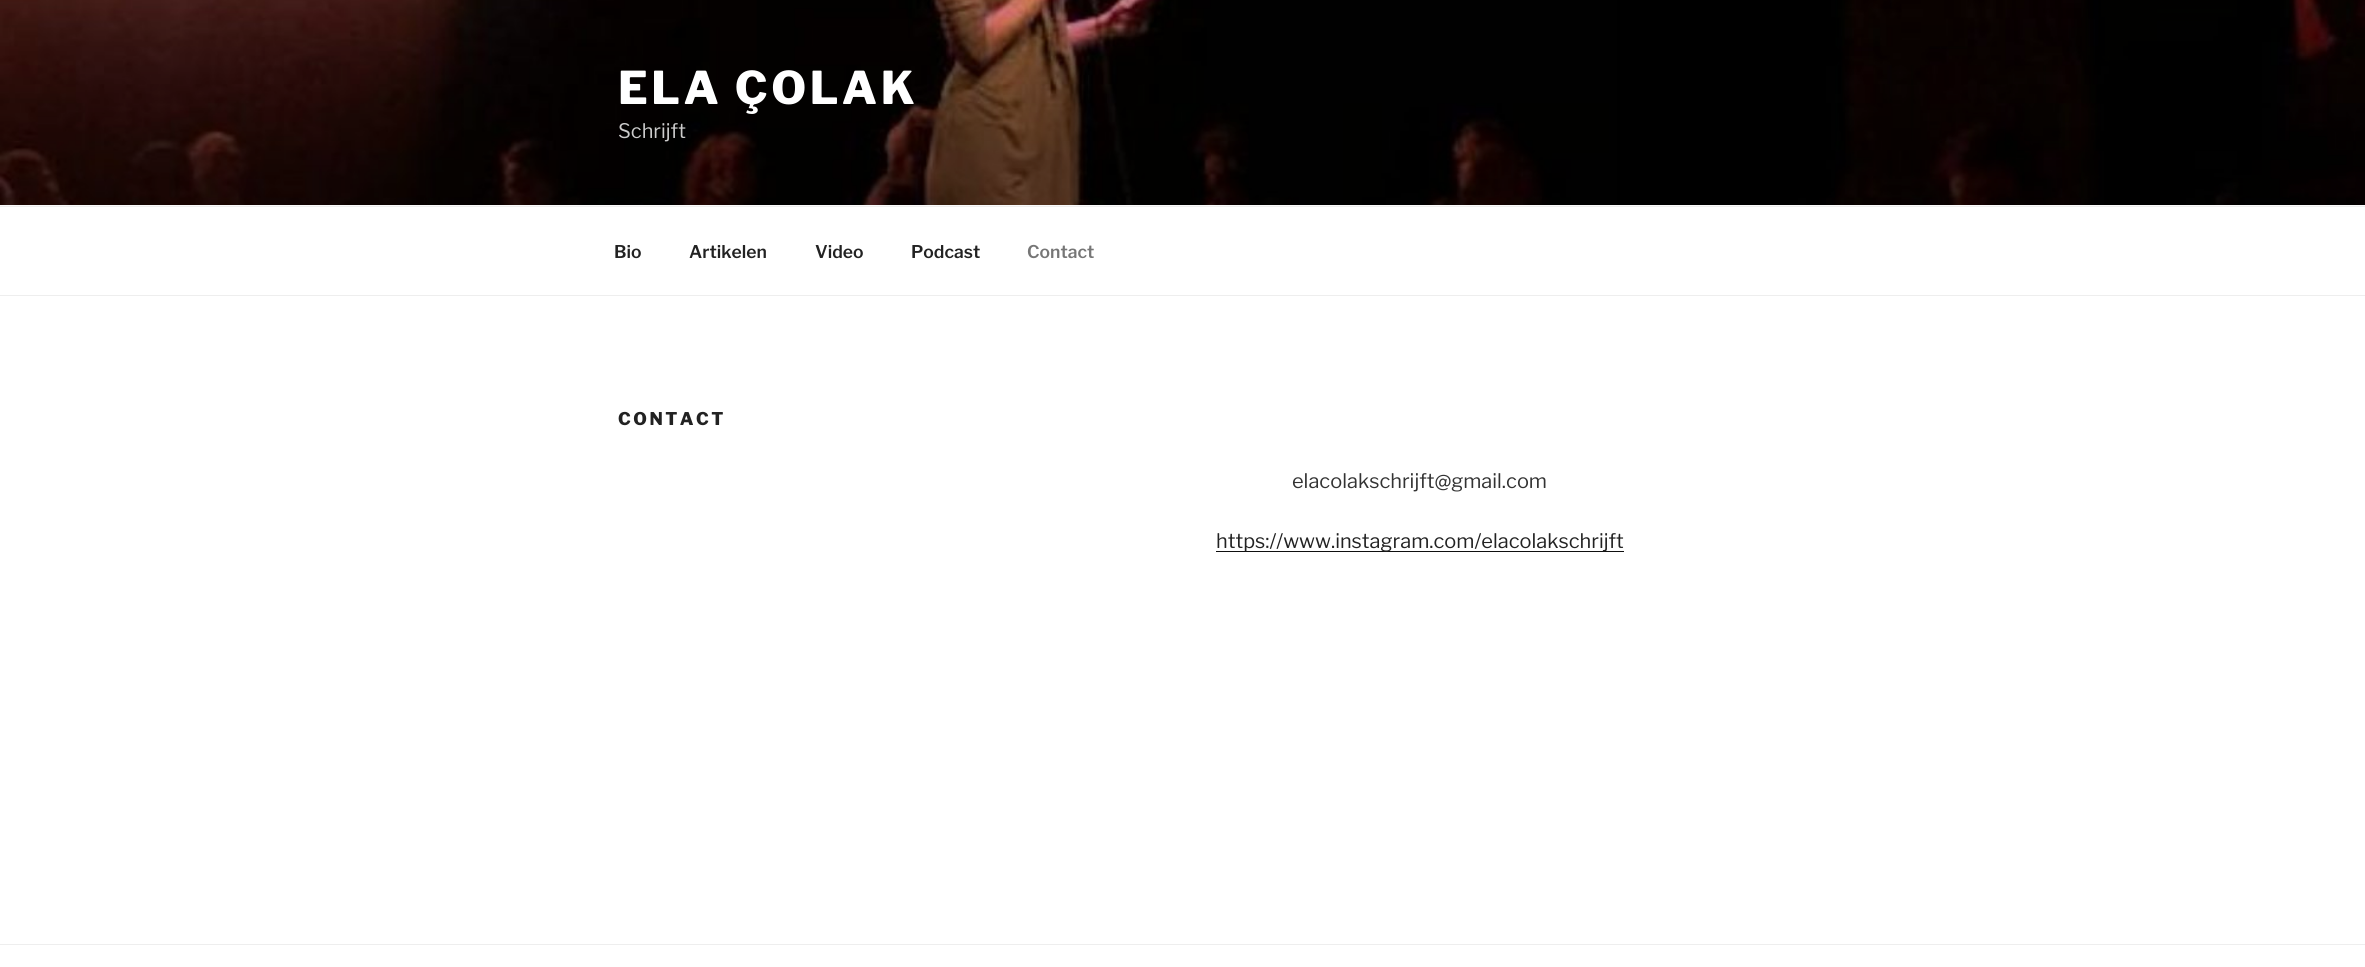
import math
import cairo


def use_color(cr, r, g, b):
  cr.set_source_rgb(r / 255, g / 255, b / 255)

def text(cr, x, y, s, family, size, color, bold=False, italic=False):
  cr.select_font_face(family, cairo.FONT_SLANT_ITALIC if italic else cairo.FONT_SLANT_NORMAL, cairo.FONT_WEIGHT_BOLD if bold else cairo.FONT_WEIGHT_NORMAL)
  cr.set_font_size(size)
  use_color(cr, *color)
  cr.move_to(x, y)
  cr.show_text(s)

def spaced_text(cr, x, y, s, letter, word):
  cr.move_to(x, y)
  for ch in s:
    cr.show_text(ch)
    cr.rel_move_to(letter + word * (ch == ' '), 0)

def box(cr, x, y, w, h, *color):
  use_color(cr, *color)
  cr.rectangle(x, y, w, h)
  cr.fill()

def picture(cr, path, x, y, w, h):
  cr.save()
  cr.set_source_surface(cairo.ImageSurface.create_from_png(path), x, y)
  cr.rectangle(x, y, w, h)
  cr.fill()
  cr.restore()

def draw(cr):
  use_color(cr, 255, 255, 255)
  cr.paint()
  box(cr, 0, 205, 2365, 1, 250, 250, 250)
  picture(cr, "img_01.png", 0, 0, 2365, 205)
  box(cr, 0, 206, 2365, 1, 238, 238, 238)
  box(cr, 0, 295, 2365, 1, 238, 238, 238)
  box(cr, 1216, 551, 408, 1, 15, 15, 15)
  box(cr, 0, 944, 2365, 1, 238, 238, 238)
  cr.select_font_face("Libre Franklin Thin")
  cr.set_font_size(45)
  use_color(cr, 255, 255, 255)
  spaced_text(cr, 618, 104, "ELA ÇOLAK", 3.5, 0)
  text(cr, 618, 138, "Schrijft", "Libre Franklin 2 Thin", 20, (204, 204, 204))
  text(cr, 614, 258, "Bio", "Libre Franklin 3 Thin", 17.5, (34, 34, 34))
  text(cr, 689, 258, "Artikelen", "Libre Franklin 3 Thin", 17.5, (34, 34, 34))
  text(cr, 815, 258, "Video", "Libre Franklin 3 Thin", 17.5, (34, 34, 34))
  text(cr, 911, 258, "Podcast", "Libre Franklin 3 Thin", 17.5, (34, 34, 34))
  text(cr, 1027, 258, "Contact", "Libre Franklin 3 Thin", 17.5, (118, 118, 118))
  cr.select_font_face("Libre Franklin Thin")
  use_color(cr, 34, 34, 34)
  spaced_text(cr, 618, 425, "CONTACT", 2.5, 0)
  text(cr, 1292, 488, "elacolakschrijft@gmail.com", "Libre Franklin 2 Thin", 20, (51, 51, 51))
  text(cr, 1216, 548, "https://www.instagram.com/elacolakschrijft", "Libre Franklin 2 Thin", 20, (34, 34, 34))


surface = cairo.ImageSurface(cairo.FORMAT_RGB24, 2365, 967)
cr = cairo.Context(surface)
options = cairo.FontOptions()
options.set_hint_metrics(cairo.HINT_METRICS_OFF)
options.set_hint_style(cairo.HINT_STYLE_NONE)
cr.set_font_options(options)
cr.set_miter_limit(4)
draw(cr)
surface.write_to_png("out.png")
